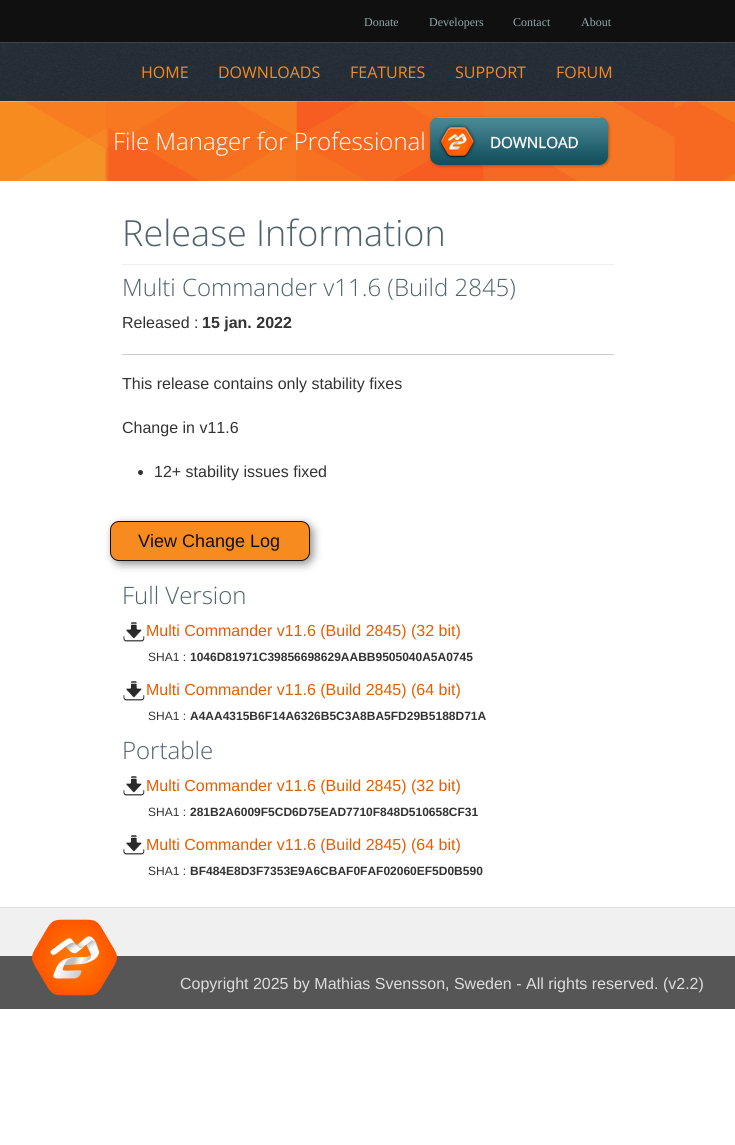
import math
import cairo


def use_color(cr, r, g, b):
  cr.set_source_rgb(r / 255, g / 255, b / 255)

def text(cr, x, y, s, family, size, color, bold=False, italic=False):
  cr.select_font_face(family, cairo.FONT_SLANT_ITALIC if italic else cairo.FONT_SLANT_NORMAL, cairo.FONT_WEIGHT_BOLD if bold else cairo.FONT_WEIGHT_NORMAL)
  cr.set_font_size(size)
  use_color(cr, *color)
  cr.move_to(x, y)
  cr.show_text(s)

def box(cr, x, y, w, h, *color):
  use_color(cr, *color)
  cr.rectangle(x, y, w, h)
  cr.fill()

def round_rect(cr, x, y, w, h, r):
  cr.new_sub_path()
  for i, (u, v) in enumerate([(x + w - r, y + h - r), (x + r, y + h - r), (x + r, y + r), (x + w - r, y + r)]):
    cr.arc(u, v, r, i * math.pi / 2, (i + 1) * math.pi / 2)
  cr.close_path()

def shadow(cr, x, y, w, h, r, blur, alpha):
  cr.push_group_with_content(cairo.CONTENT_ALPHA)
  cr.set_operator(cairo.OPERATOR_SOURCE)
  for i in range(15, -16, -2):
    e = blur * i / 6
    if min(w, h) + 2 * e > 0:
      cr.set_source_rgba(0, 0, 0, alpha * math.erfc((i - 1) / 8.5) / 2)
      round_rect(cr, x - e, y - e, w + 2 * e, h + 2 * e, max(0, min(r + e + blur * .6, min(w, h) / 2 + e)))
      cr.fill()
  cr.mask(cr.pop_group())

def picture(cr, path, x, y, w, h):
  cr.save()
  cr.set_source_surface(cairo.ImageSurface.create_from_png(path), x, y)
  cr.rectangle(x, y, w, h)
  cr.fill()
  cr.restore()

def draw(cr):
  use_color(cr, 255, 255, 255)
  cr.paint()
  picture(cr, "img_01.png", 0, 43, 735, 58)
  box(cr, 0, 0, 735, 42, 16, 16, 16)
  box(cr, 0, 42, 735, 1, 59, 67, 76)
  picture(cr, "img_02.png", 0, 101, 735, 80)
  use_color(cr, 0, 0, 0)
  shadow(cr, 431, 118, 178, 48, 9, 1.5, 0.3)
  use_color(cr, 65, 127, 141)
  round_rect(cr, 430, 117, 178, 48, 9)
  cr.fill()
  picture(cr, "img_03.png", 430, 117, 178, 48)
  box(cr, 122, 264, 492, 1, 238, 238, 238)
  box(cr, 122, 354, 492, 1, 204, 204, 204)
  use_color(cr, 51, 51, 51)
  cr.arc(140.5, 472.5, 2.5, 0, 2 * math.pi)
  cr.fill()
  use_color(cr, 0, 0, 0)
  shadow(cr, 113, 524, 200, 40, 9, 4.5, 0.45)
  use_color(cr, 247, 139, 32)
  round_rect(cr, 110.5, 521.5, 199, 39, 8.5)
  cr.fill_preserve()
  use_color(cr, 16, 16, 16)
  cr.set_line_width(1)
  cr.stroke()
  picture(cr, "img_04.png", 123, 622, 22, 20)
  picture(cr, "img_04.png", 123, 681, 22, 20)
  picture(cr, "img_04.png", 123, 776, 22, 20)
  picture(cr, "img_04.png", 123, 835, 22, 20)
  box(cr, 0, 956, 735, 53, 86, 86, 86)
  box(cr, 0, 908, 735, 48, 240, 240, 240)
  box(cr, 0, 907, 735, 1, 222, 226, 230)
  picture(cr, "img_05.png", 32, 919, 85, 77)
  text(cr, 364, 26, "Donate", "Liberation Serif", 12, (147, 166, 170))
  text(cr, 429, 26, "Developers", "Liberation Serif", 12, (147, 166, 170))
  text(cr, 513, 26, "Contact", "Liberation Serif", 12, (147, 166, 170))
  text(cr, 581, 26, "About", "Liberation Serif", 12, (147, 166, 170))
  text(cr, 141, 78, "HOME", "Open Sans", 16, (247, 139, 32))
  text(cr, 218, 78, "DOWNLOADS", "Open Sans", 16, (247, 139, 32))
  text(cr, 350, 78, "FEATURES", "Open Sans", 16, (247, 139, 32))
  text(cr, 455, 78, "SUPPORT", "Open Sans", 16, (247, 139, 32))
  text(cr, 556, 78, "FORUM", "Open Sans", 16, (247, 139, 32))
  text(cr, 113, 150, "File Manager for Professional", "Open Sans Light", 24, (255, 255, 255))
  text(cr, 122, 246, "Release Information", "Open Sans Light", 36, (78, 99, 107))
  text(cr, 122, 296, "Multi Commander v11.6 (Build 2845)", "Open Sans Light", 24, (78, 99, 107))
  text(cr, 122, 328, "Released :", "Liberation Sans", 16, (51, 51, 51))
  text(cr, 202, 328, "15 jan. 2022", "Liberation Sans", 16, (51, 51, 51), bold=True)
  text(cr, 122, 389, "This release contains only stability fixes", "Liberation Sans", 16, (51, 51, 51))
  text(cr, 122, 433, "Change in v11.6", "Liberation Sans", 16, (51, 51, 51))
  text(cr, 154, 477, "12+ stability issues fixed", "Liberation Sans", 16, (51, 51, 51))
  text(cr, 138, 547, "View Change Log", "Liberation Sans", 18, (16, 16, 16))
  text(cr, 122, 604, "Full Version", "Open Sans Light", 24, (78, 99, 107))
  text(cr, 146, 636, "Multi Commander v11.6 (Build 2845) (32 bit)", "Liberation Sans", 16, (231, 92, 0))
  text(cr, 148, 661, "SHA1 :", "Liberation Sans", 12, (51, 51, 51))
  text(cr, 190, 661, "1046D81971C39856698629AABB9505040A5A0745", "Liberation Sans", 12, (51, 51, 51), bold=True)
  text(cr, 146, 695, "Multi Commander v11.6 (Build 2845) (64 bit)", "Liberation Sans", 16, (231, 92, 0))
  text(cr, 148, 720, "SHA1 :", "Liberation Sans", 12, (51, 51, 51))
  text(cr, 190, 720, "A4AA4315B6F14A6326B5C3A8BA5FD29B5188D71A", "Liberation Sans", 12, (51, 51, 51), bold=True)
  text(cr, 122, 759, "Portable", "Open Sans Light", 24, (78, 99, 107))
  text(cr, 146, 791, "Multi Commander v11.6 (Build 2845) (32 bit)", "Liberation Sans", 16, (231, 92, 0))
  text(cr, 148, 816, "SHA1 :", "Liberation Sans", 12, (51, 51, 51))
  text(cr, 190, 816, "281B2A6009F5CD6D75EAD7710F848D510658CF31", "Liberation Sans", 12, (51, 51, 51), bold=True)
  text(cr, 146, 850, "Multi Commander v11.6 (Build 2845) (64 bit)", "Liberation Sans", 16, (231, 92, 0))
  text(cr, 148, 875, "SHA1 :", "Liberation Sans", 12, (51, 51, 51))
  text(cr, 190, 875, "BF484E8D3F7353E9A6CBAF0FAF02060EF5D0B590", "Liberation Sans", 12, (51, 51, 51), bold=True)
  text(cr, 180, 989, "Copyright 2025 by Mathias Svensson, Sweden - All rights reserved. (v2.2)", "Liberation Sans", 16, (221, 221, 221))


surface = cairo.ImageSurface(cairo.FORMAT_RGB24, 735, 1145)
cr = cairo.Context(surface)
options = cairo.FontOptions()
options.set_hint_metrics(cairo.HINT_METRICS_OFF)
options.set_hint_style(cairo.HINT_STYLE_NONE)
cr.set_font_options(options)
cr.set_miter_limit(4)
draw(cr)
surface.write_to_png("out.png")
